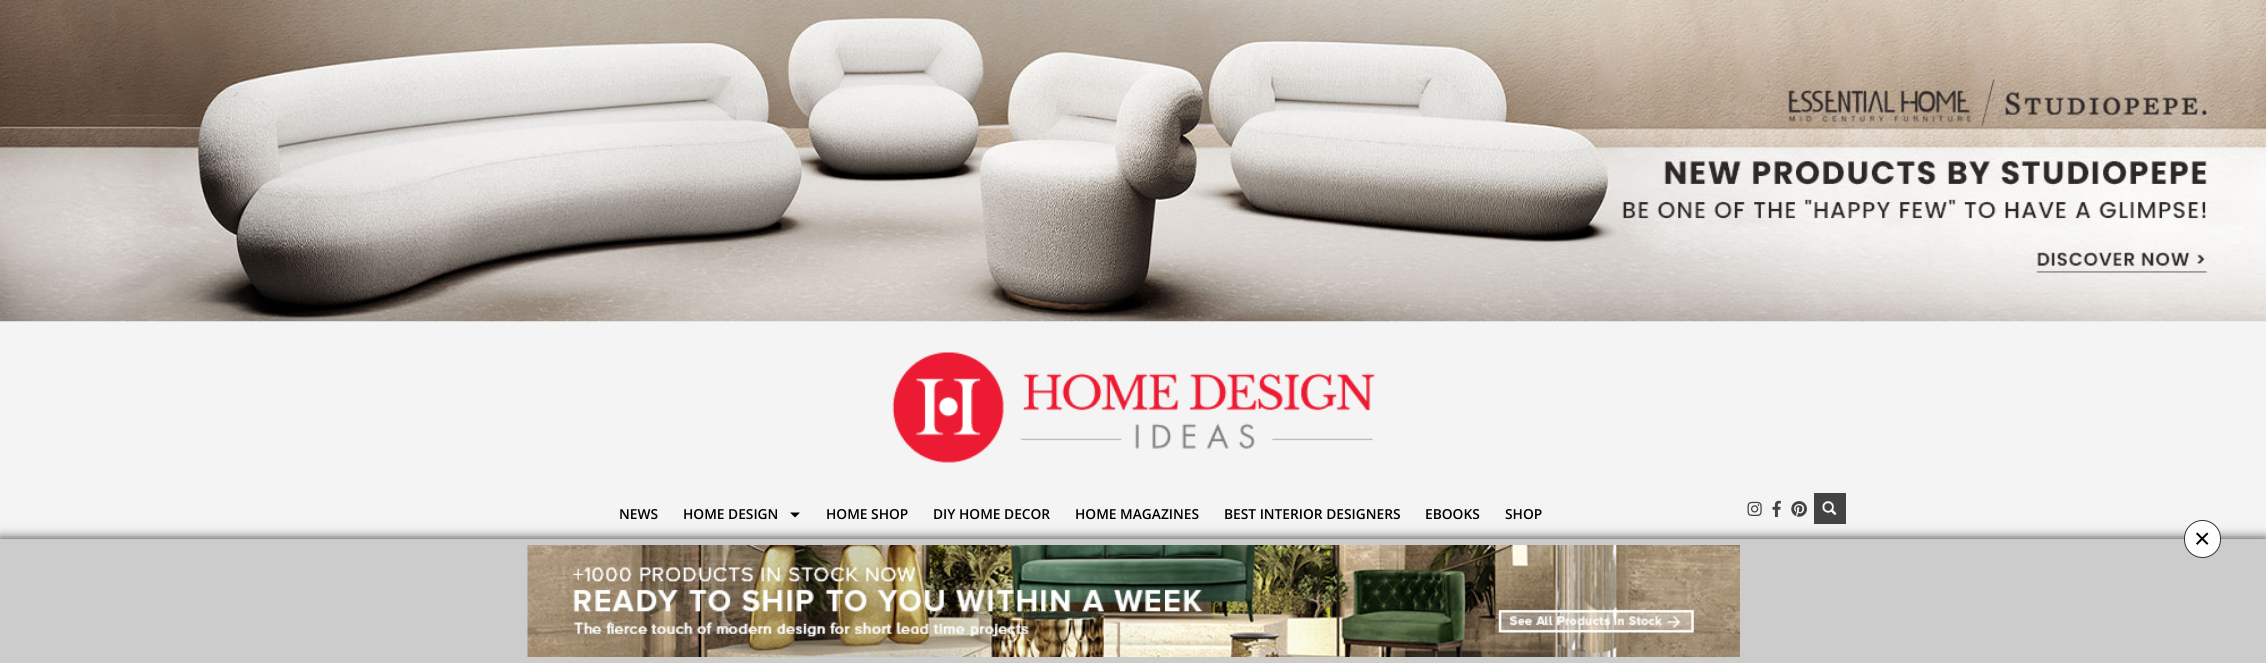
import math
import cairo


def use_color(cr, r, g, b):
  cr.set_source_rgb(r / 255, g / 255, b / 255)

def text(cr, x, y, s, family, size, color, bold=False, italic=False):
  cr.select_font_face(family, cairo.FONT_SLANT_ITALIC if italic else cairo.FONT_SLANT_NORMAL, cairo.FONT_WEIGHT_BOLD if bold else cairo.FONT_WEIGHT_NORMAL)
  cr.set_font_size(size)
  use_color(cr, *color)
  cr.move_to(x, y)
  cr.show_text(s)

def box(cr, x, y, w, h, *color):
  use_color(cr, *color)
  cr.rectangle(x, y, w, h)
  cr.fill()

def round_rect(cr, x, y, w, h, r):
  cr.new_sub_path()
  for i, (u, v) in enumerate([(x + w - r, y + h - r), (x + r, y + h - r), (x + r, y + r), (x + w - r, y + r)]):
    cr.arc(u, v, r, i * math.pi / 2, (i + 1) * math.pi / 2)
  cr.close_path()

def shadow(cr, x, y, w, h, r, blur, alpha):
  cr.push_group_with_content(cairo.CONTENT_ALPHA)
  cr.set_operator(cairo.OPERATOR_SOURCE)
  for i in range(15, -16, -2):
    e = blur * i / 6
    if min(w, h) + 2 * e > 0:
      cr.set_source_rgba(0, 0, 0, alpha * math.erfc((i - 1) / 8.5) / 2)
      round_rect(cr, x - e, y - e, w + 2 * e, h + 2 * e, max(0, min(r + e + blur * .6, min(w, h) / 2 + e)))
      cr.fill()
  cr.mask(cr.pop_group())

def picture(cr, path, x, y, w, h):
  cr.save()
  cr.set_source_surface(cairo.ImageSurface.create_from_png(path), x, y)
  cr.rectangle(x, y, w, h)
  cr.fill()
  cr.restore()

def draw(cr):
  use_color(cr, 244, 244, 244)
  cr.paint()
  picture(cr, "img_01.png", 0, 0, 2266, 322)
  picture(cr, "img_02.png", 892, 352, 484, 111)
  use_color(cr, 0, 0, 0)
  cr.new_path()
  cr.move_to(790, 512.5)
  cr.line_to(800, 512.5)
  cr.line_to(795, 517.5)
  cr.close_path()
  cr.fill()
  picture(cr, "img_03.png", 1747, 501, 15, 15)
  picture(cr, "img_04.png", 1772, 500, 9, 17)
  picture(cr, "img_05.png", 1791, 501, 16, 16)
  box(cr, 1814, 493, 32, 31, 67, 67, 67)
  picture(cr, "img_06.png", 1822, 501, 15, 14)
  use_color(cr, 0, 0, 0)
  shadow(cr, 0, 539, 2266, 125, 0, 6, 0.8)
  box(cr, 0, 539, 2266, 124, 204, 204, 204)
  use_color(cr, 255, 255, 255)
  round_rect(cr, 2184.5, 520.5, 36, 37, 18)
  cr.fill_preserve()
  use_color(cr, 51, 51, 51)
  cr.set_line_width(1)
  cr.stroke()
  picture(cr, "img_07.png", 527, 545, 1213, 112)
  text(cr, 619, 519, "NEWS", "Open Sans SemiBold", 13.75, (0, 0, 0))
  text(cr, 683, 519, "HOME DESIGN", "Open Sans SemiBold", 13.75, (0, 0, 0))
  text(cr, 826, 519, "HOME SHOP", "Open Sans SemiBold", 13.75, (0, 0, 0))
  text(cr, 933, 519, "DIY HOME DECOR", "Open Sans SemiBold", 13.75, (0, 0, 0))
  text(cr, 1075, 519, "HOME MAGAZINES", "Open Sans SemiBold", 13.75, (0, 0, 0))
  text(cr, 1224, 519, "BEST INTERIOR DESIGNERS", "Open Sans SemiBold", 13.75, (0, 0, 0))
  text(cr, 1425, 519, "EBOOKS", "Open Sans SemiBold", 13.75, (0, 0, 0))
  text(cr, 1505, 519, "SHOP", "Open Sans SemiBold", 13.75, (0, 0, 0))
  text(cr, 2194, 548, "×", "Liberation Sans", 28, (0, 0, 0))


surface = cairo.ImageSurface(cairo.FORMAT_RGB24, 2266, 663)
cr = cairo.Context(surface)
options = cairo.FontOptions()
options.set_hint_metrics(cairo.HINT_METRICS_OFF)
options.set_hint_style(cairo.HINT_STYLE_NONE)
cr.set_font_options(options)
cr.set_miter_limit(4)
draw(cr)
surface.write_to_png("out.png")
